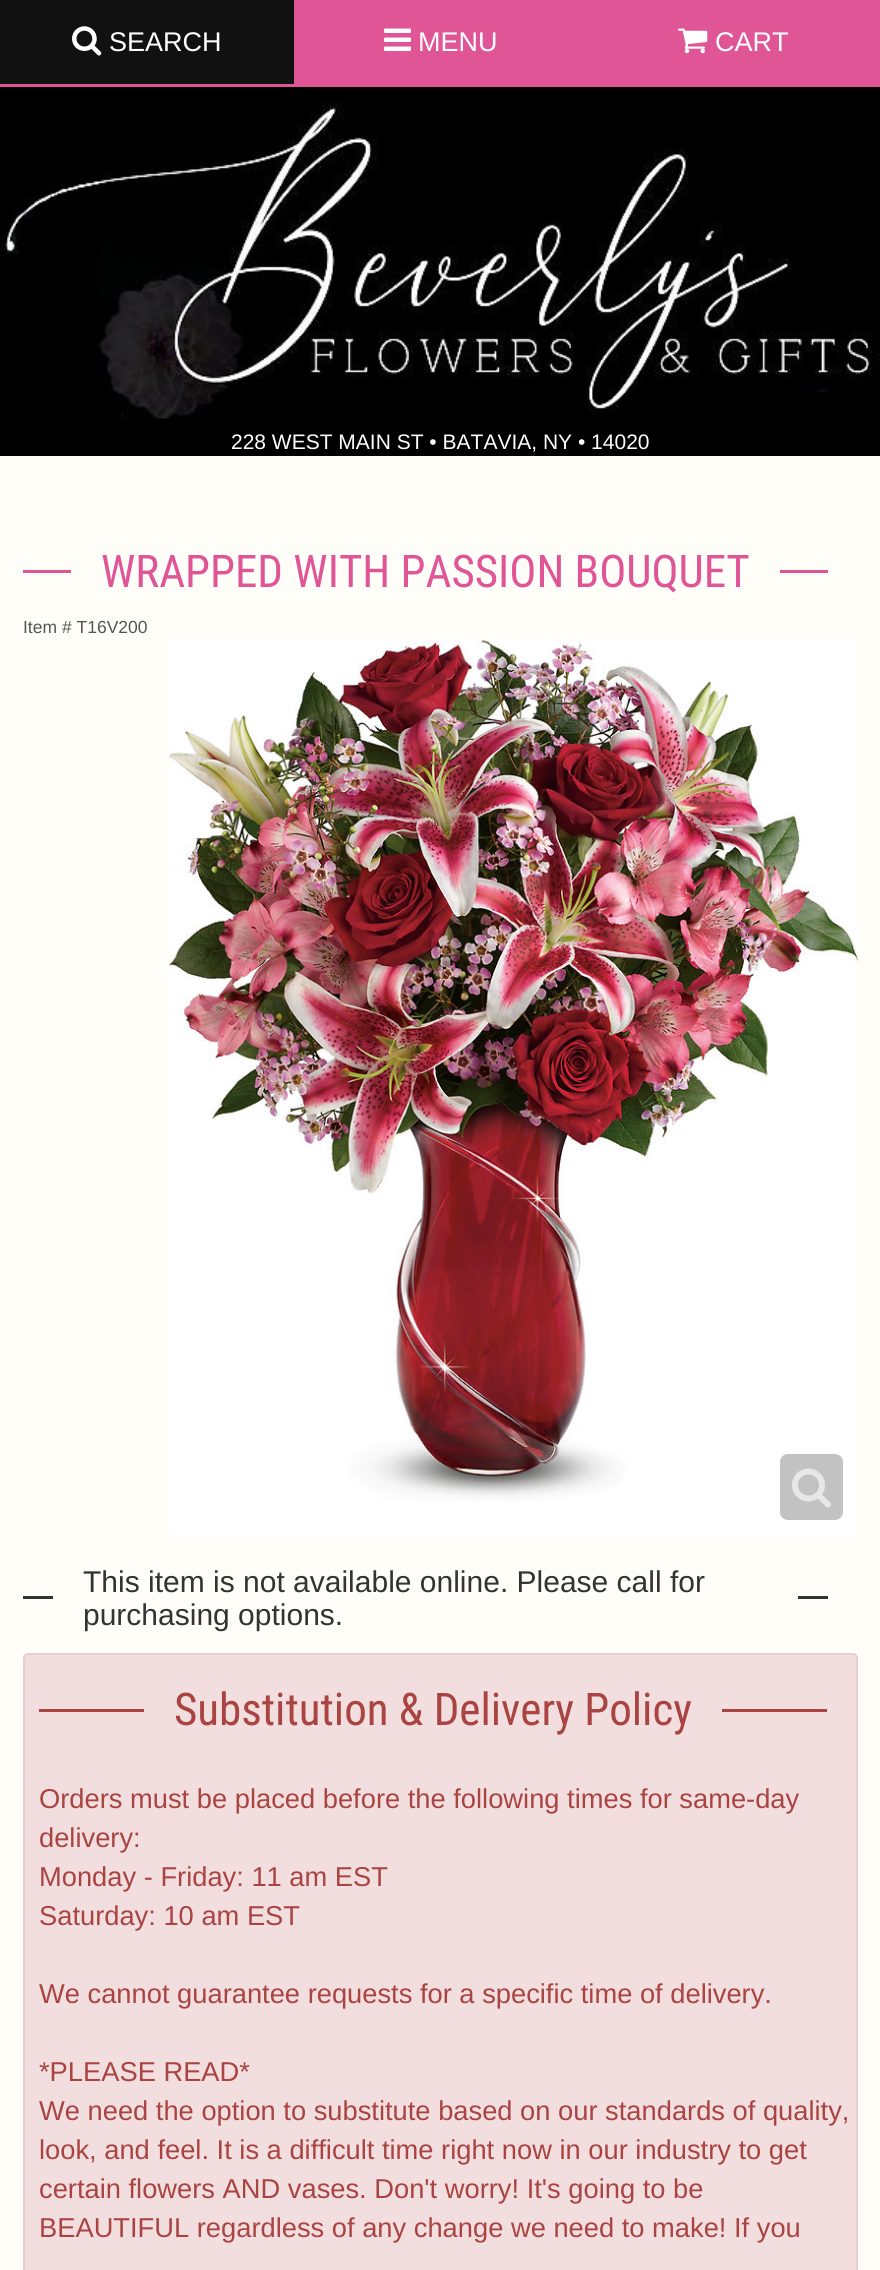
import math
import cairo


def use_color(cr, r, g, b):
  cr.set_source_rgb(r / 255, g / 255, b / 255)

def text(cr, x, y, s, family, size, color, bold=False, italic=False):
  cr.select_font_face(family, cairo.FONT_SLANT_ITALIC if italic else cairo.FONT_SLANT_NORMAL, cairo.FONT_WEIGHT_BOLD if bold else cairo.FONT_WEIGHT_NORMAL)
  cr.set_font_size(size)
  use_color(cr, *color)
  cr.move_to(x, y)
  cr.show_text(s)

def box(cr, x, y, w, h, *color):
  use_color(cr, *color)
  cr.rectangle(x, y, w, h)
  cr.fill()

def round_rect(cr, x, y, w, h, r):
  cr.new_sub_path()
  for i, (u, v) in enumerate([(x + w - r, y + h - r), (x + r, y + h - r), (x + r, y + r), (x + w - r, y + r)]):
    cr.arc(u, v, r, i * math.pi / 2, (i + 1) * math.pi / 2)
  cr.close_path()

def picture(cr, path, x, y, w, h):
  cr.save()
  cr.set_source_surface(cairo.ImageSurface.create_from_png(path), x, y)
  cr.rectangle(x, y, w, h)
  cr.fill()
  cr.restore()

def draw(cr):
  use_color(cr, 255, 253, 248)
  cr.paint()
  box(cr, 0, 0, 880, 87, 224, 85, 150)
  box(cr, 0, 0, 294, 84, 17, 17, 17)
  picture(cr, "img_01.png", 72, 26, 30, 30)
  picture(cr, "img_02.png", 384, 28, 27, 23)
  picture(cr, "img_03.png", 678, 28, 30, 26)
  box(cr, 0, 87, 880, 369, 0, 0, 0)
  picture(cr, "img_04.png", 0, 99, 880, 320)
  box(cr, 23, 570, 48, 3, 224, 85, 150)
  box(cr, 780, 570, 48, 3, 224, 85, 150)
  box(cr, 170, 1501, 688, 34, 255, 255, 255)
  picture(cr, "img_05.png", 169, 640, 689, 861)
  use_color(cr, 194, 194, 194)
  round_rect(cr, 780, 1454, 63, 66, 8)
  cr.fill()
  picture(cr, "img_06.png", 792, 1468, 39, 40)
  box(cr, 23, 1596, 30, 3, 51, 51, 51)
  box(cr, 798, 1596, 30, 3, 51, 51, 51)
  use_color(cr, 242, 222, 222)
  round_rect(cr, 24, 1654, 833, 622, 4)
  cr.fill_preserve()
  use_color(cr, 235, 204, 209)
  cr.stroke()
  box(cr, 39, 1709, 105, 3, 169, 68, 66)
  box(cr, 722, 1709, 105, 3, 169, 68, 66)
  text(cr, 109, 51, "SEARCH", "Liberation Sans", 27, (255, 255, 255))
  text(cr, 418, 51, "MENU", "Liberation Sans", 27, (255, 255, 255))
  text(cr, 715, 51, "CART", "Liberation Sans", 27, (255, 255, 255))
  text(cr, 231, 449, "228 WEST MAIN ST • BATAVIA, NY • 14020", "Liberation Sans", 21, (255, 255, 255))
  text(cr, 101, 587, "WRAPPED WITH PASSION BOUQUET", "Roboto Condensed", 45, (224, 85, 150))
  text(cr, 23, 633, "Item # T16V200", "Liberation Sans", 17.5, (85, 85, 85))
  text(cr, 83, 1592, "This item is not available online. Please call for", "Liberation Sans", 30, (51, 51, 51))
  text(cr, 83, 1625, "purchasing options.", "Liberation Sans", 30, (51, 51, 51))
  text(cr, 174, 1725, "Substitution & Delivery Policy", "Roboto Condensed", 45, (169, 68, 66))
  text(cr, 39, 1808, "Orders must be placed before the following times for same-day", "Liberation Sans", 27.3, (169, 68, 66))
  text(cr, 39, 1847, "delivery:", "Liberation Sans", 27.3, (169, 68, 66))
  text(cr, 39, 1886, "Monday - Friday: 11 am EST", "Liberation Sans", 27.3, (169, 68, 66))
  text(cr, 39, 1925, "Saturday: 10 am EST", "Liberation Sans", 27.3, (169, 68, 66))
  text(cr, 39, 2003, "We cannot guarantee requests for a specific time of delivery.", "Liberation Sans", 27.3, (169, 68, 66))
  text(cr, 39, 2081, "*PLEASE READ*", "Liberation Sans", 27.3, (169, 68, 66))
  text(cr, 39, 2120, "We need the option to substitute based on our standards of quality,", "Liberation Sans", 27.3, (169, 68, 66))
  text(cr, 39, 2159, "look, and feel. It is a difficult time right now in our industry to get", "Liberation Sans", 27.3, (169, 68, 66))
  text(cr, 39, 2198, "certain flowers AND vases. Don't worry! It's going to be", "Liberation Sans", 27.3, (169, 68, 66))
  text(cr, 39, 2237, "BEAUTIFUL regardless of any change we need to make! If you", "Liberation Sans", 27.3, (169, 68, 66))


surface = cairo.ImageSurface(cairo.FORMAT_RGB24, 880, 2270)
cr = cairo.Context(surface)
options = cairo.FontOptions()
options.set_hint_metrics(cairo.HINT_METRICS_OFF)
options.set_hint_style(cairo.HINT_STYLE_NONE)
cr.set_font_options(options)
cr.set_miter_limit(4)
draw(cr)
surface.write_to_png("out.png")
